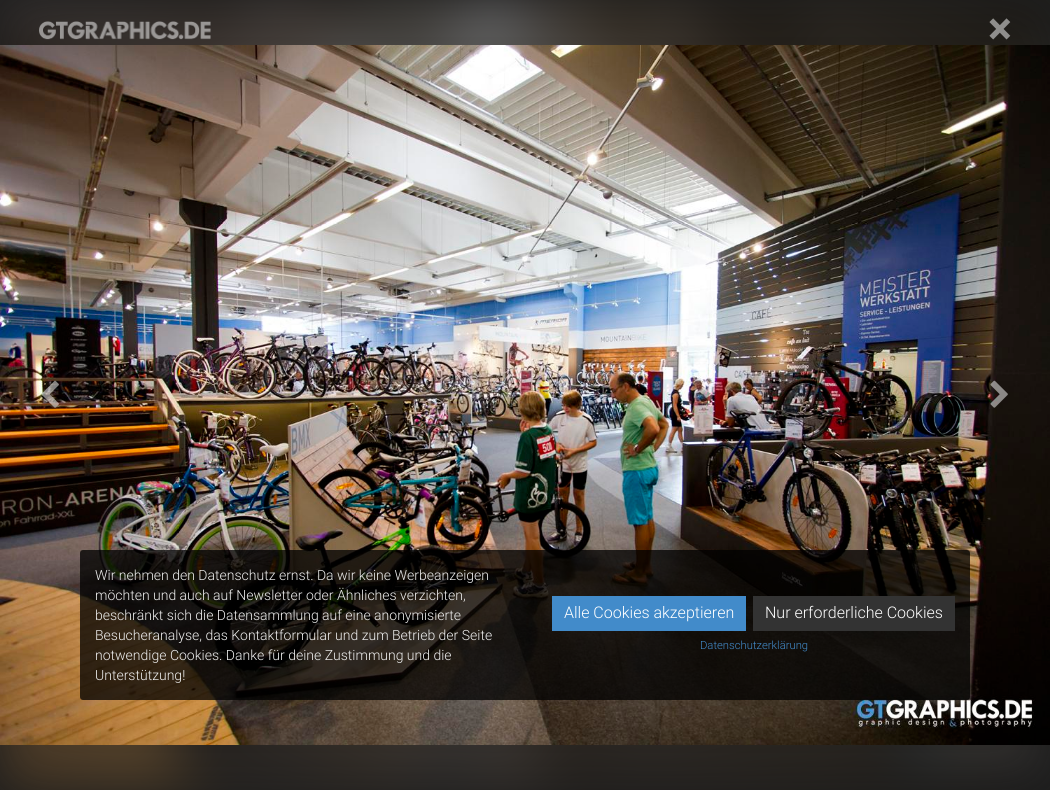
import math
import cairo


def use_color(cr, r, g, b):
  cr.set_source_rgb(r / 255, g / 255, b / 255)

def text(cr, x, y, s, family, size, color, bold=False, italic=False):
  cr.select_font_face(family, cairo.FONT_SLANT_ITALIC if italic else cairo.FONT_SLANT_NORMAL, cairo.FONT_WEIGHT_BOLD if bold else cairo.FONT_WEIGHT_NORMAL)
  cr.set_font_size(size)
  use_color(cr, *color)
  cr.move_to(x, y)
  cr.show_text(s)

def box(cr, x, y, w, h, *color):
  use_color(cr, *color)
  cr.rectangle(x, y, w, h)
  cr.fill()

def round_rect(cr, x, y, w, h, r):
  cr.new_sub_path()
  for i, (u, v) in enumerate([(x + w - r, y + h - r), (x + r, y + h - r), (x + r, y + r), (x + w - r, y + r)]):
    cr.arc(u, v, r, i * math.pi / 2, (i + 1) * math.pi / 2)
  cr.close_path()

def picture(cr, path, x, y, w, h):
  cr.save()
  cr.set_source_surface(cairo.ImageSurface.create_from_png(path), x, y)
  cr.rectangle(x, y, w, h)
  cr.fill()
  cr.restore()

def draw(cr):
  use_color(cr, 30, 30, 30)
  cr.paint()
  picture(cr, "img_01.png", 0, 0, 1050, 790)
  picture(cr, "img_02.png", 0, 45, 1050, 700)
  picture(cr, "img_03.png", 41, 380, 18, 28)
  picture(cr, "img_04.png", 990, 380, 18, 28)
  picture(cr, "img_05.png", 39, 21, 172, 19)
  cr.set_source_rgba(0, 0, 0, 0.75)
  round_rect(cr, 80, 550, 890, 150, 3)
  cr.fill()
  box(cr, 552, 596, 194, 35, 66, 139, 202)
  box(cr, 753, 596, 202, 35, 51, 51, 51)
  text(cr, 988, 44, "×", "Roboto", 45, (143, 142, 140), bold=True)
  text(cr, 95, 580, "Wir nehmen den Datenschutz ernst. Da wir keine Werbeanzeigen", "Roboto Light", 14, (238, 238, 238))
  text(cr, 95, 600, "möchten und auch auf Newsletter oder Ähnliches verzichten,", "Roboto Light", 14, (238, 238, 238))
  text(cr, 95, 620, "beschränkt sich die Datensammlung auf eine anonymisierte", "Roboto Light", 14, (238, 238, 238))
  text(cr, 95, 640, "Besucheranalyse, das Kontaktformular und zum Betrieb der Seite", "Roboto Light", 14, (238, 238, 238))
  text(cr, 95, 660, "notwendige Cookies. Danke für deine Zustimmung und die", "Roboto Light", 14, (238, 238, 238))
  text(cr, 95, 680, "Unterstützung!", "Roboto Light", 14, (238, 238, 238))
  text(cr, 564, 618, "Alle Cookies akzeptieren", "Roboto Light", 16, (255, 255, 255))
  text(cr, 765, 618, "Nur erforderliche Cookies", "Roboto Light", 16, (255, 255, 255))
  text(cr, 700, 649, "Datenschutzerklärung", "Roboto Light", 11.25, (66, 139, 202))


surface = cairo.ImageSurface(cairo.FORMAT_RGB24, 1050, 790)
cr = cairo.Context(surface)
options = cairo.FontOptions()
options.set_hint_metrics(cairo.HINT_METRICS_OFF)
options.set_hint_style(cairo.HINT_STYLE_NONE)
cr.set_font_options(options)
cr.set_miter_limit(4)
draw(cr)
surface.write_to_png("out.png")
